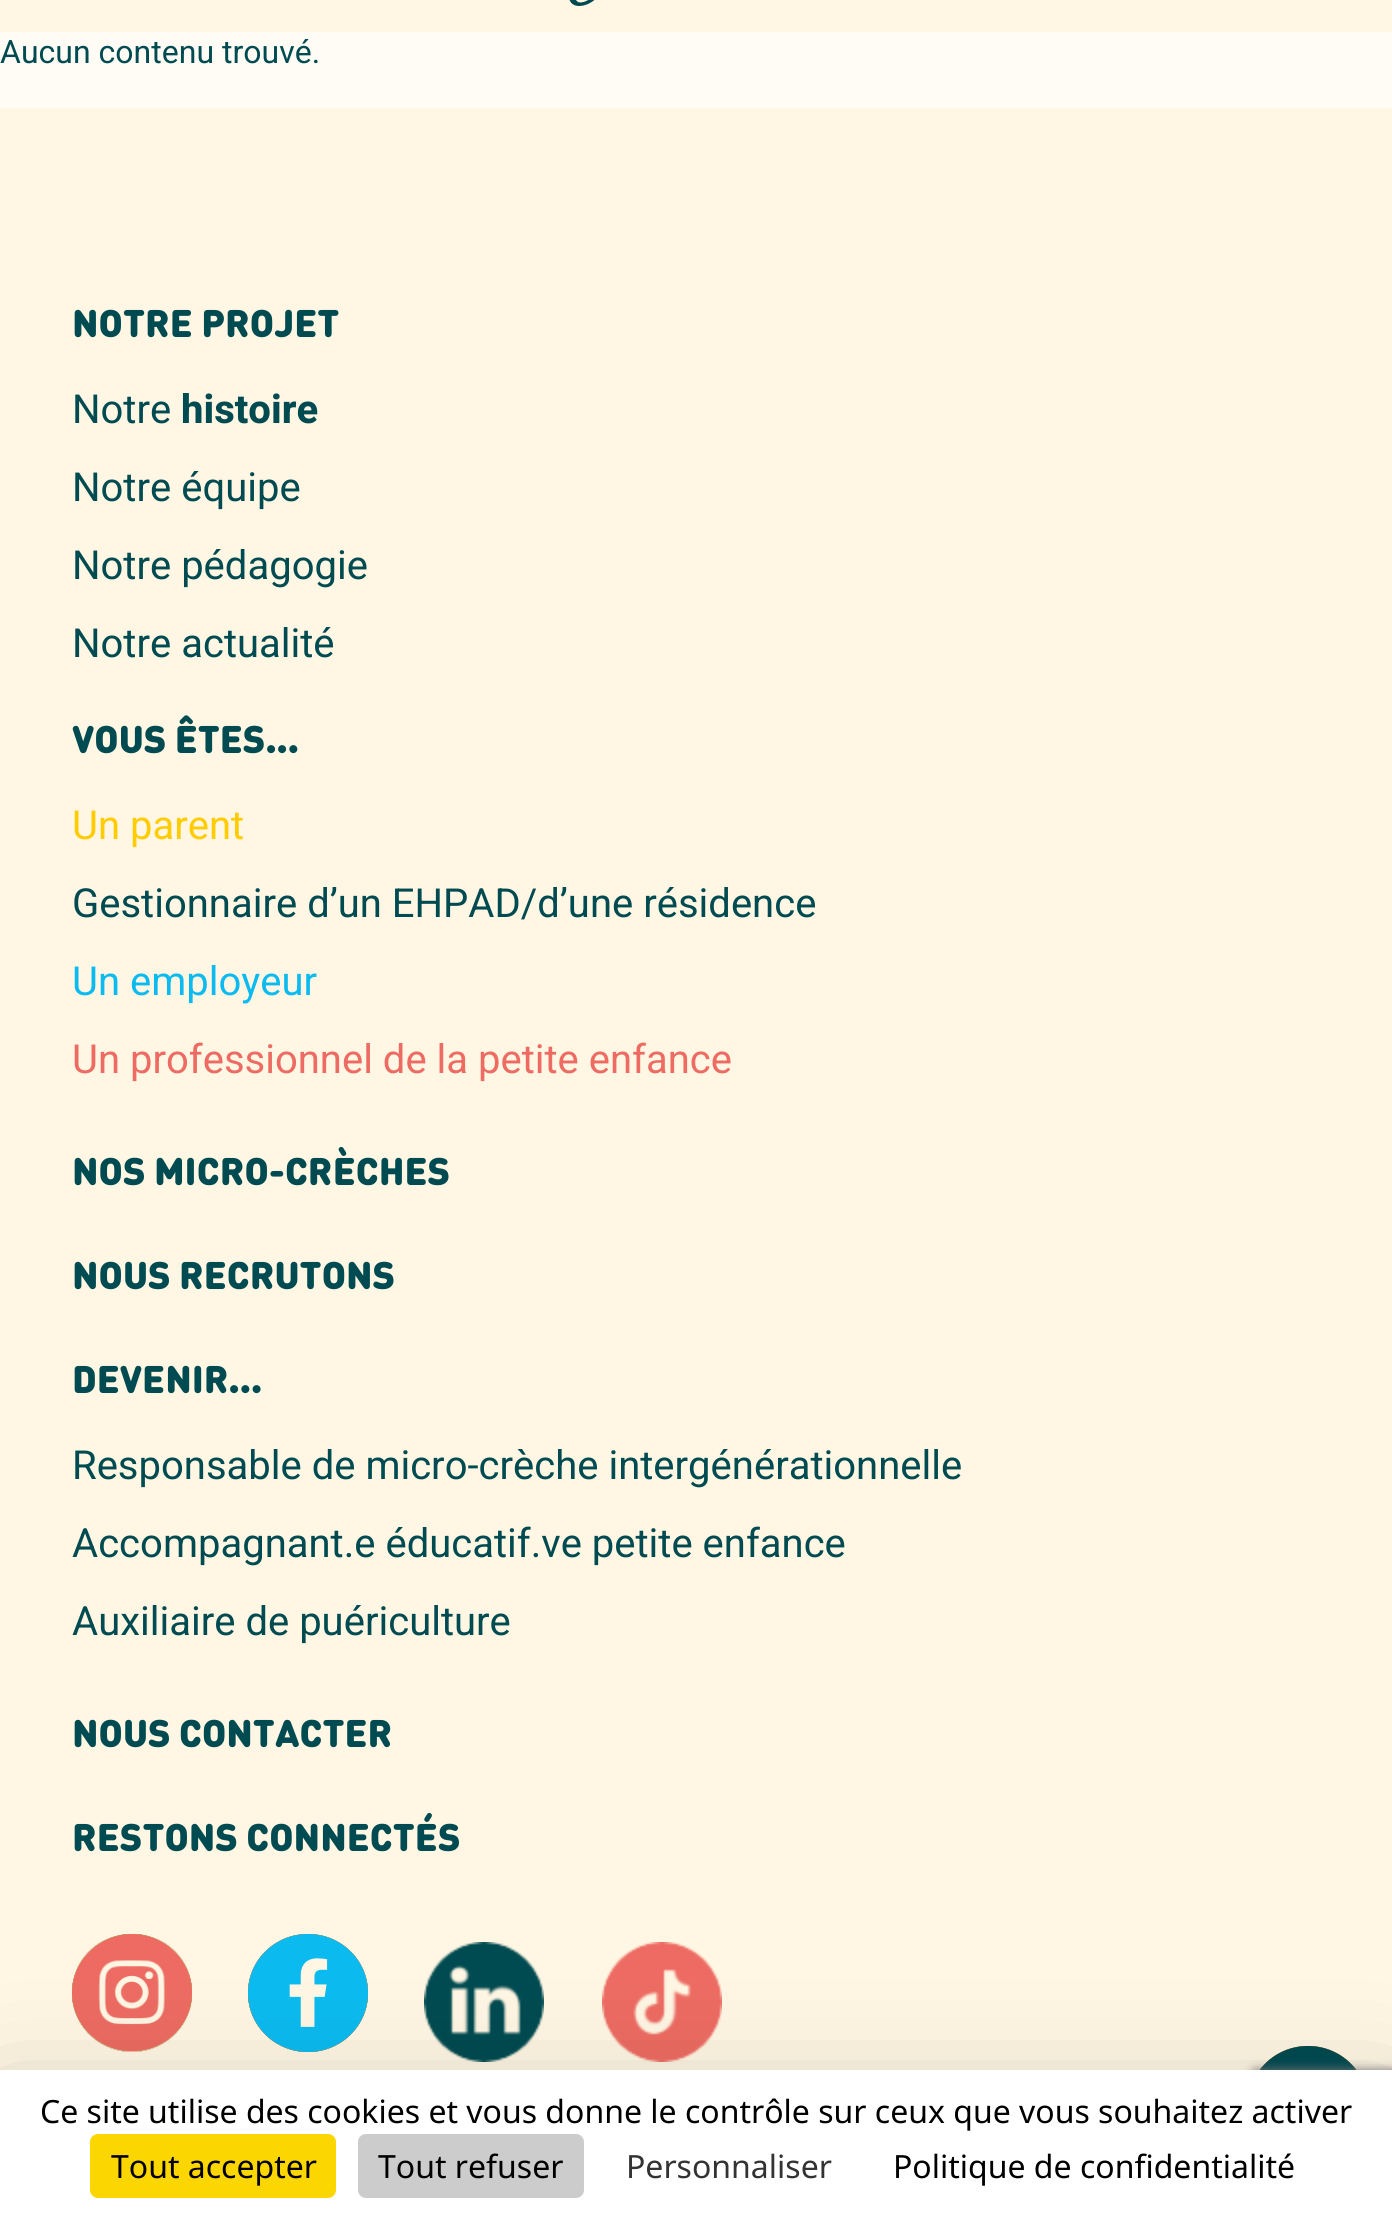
import math
import cairo


def use_color(cr, r, g, b):
  cr.set_source_rgb(r / 255, g / 255, b / 255)

def text(cr, x, y, s, family, size, color, bold=False, italic=False):
  cr.select_font_face(family, cairo.FONT_SLANT_ITALIC if italic else cairo.FONT_SLANT_NORMAL, cairo.FONT_WEIGHT_BOLD if bold else cairo.FONT_WEIGHT_NORMAL)
  cr.set_font_size(size)
  use_color(cr, *color)
  cr.move_to(x, y)
  cr.show_text(s)

def box(cr, x, y, w, h, *color):
  use_color(cr, *color)
  cr.rectangle(x, y, w, h)
  cr.fill()

def round_rect(cr, x, y, w, h, r):
  cr.new_sub_path()
  for i, (u, v) in enumerate([(x + w - r, y + h - r), (x + r, y + h - r), (x + r, y + r), (x + w - r, y + r)]):
    cr.arc(u, v, r, i * math.pi / 2, (i + 1) * math.pi / 2)
  cr.close_path()

def shadow(cr, x, y, w, h, r, blur, alpha):
  cr.push_group_with_content(cairo.CONTENT_ALPHA)
  cr.set_operator(cairo.OPERATOR_SOURCE)
  for i in range(15, -16, -2):
    e = blur * i / 6
    if min(w, h) + 2 * e > 0:
      cr.set_source_rgba(0, 0, 0, alpha * math.erfc((i - 1) / 8.5) / 2)
      round_rect(cr, x - e, y - e, w + 2 * e, h + 2 * e, max(0, min(r + e + blur * .6, min(w, h) / 2 + e)))
      cr.fill()
  cr.mask(cr.pop_group())

def picture(cr, path, x, y, w, h):
  cr.save()
  cr.set_source_surface(cairo.ImageSurface.create_from_png(path), x, y)
  cr.rectangle(x, y, w, h)
  cr.fill()
  cr.restore()

def draw(cr):
  use_color(cr, 255, 252, 245)
  cr.paint()
  box(cr, 0, 0, 1392, 32, 255, 246, 227)
  picture(cr, "img_01.png", 569, 0, 26, 6)
  box(cr, 0, 108, 1392, 1962, 255, 246, 227)
  picture(cr, "img_02.png", 72, 1934, 120, 118)
  picture(cr, "img_03.png", 248, 1934, 120, 118)
  picture(cr, "img_04.png", 424, 1942, 120, 120)
  picture(cr, "img_05.png", 602, 1942, 120, 120)
  picture(cr, "img_06.png", 1259, 2046, 98, 24)
  use_color(cr, 128, 128, 128)
  shadow(cr, 1252, 2070, 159, 120, 4, 5, 1)
  use_color(cr, 0, 0, 0)
  shadow(cr, 0, 2110, 1392, 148, 0, 60, 0.25)
  box(cr, 0, 2070, 1392, 147, 255, 255, 255)
  use_color(cr, 251, 214, 0)
  round_rect(cr, 90, 2134, 246, 64, 8)
  cr.fill()
  use_color(cr, 204, 204, 204)
  round_rect(cr, 358, 2134, 226, 64, 8)
  cr.fill()
  text(cr, 0, 63, "Aucun contenu trouvé.", "Heebo", 32, (0, 75, 81))
  text(cr, 72, 337, "NOTRE PROJET", "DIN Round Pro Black", 38, (0, 75, 81))
  text(cr, 72, 423, "Notre", "Heebo", 40, (0, 75, 81))
  text(cr, 181, 423, "histoire", "Heebo", 40, (0, 75, 81), bold=True)
  text(cr, 72, 501, "Notre équipe", "Heebo", 40, (0, 75, 81))
  text(cr, 72, 579, "Notre pédagogie", "Heebo", 40, (0, 75, 81))
  text(cr, 72, 657, "Notre actualité", "Heebo", 40, (0, 75, 81))
  text(cr, 72, 753, "VOUS ÊTES...", "DIN Round Pro Black", 38, (0, 75, 81))
  text(cr, 72, 839, "Un parent", "Heebo", 40, (255, 204, 0))
  text(cr, 72, 917, "Gestionnaire d’un EHPAD/d’une résidence", "Heebo", 40, (0, 75, 81))
  text(cr, 72, 995, "Un employeur", "Heebo", 40, (11, 187, 239))
  text(cr, 72, 1073, "Un professionnel de la petite enfance", "Heebo", 40, (237, 107, 98))
  text(cr, 72, 1185, "NOS MICRO-CRÈCHES", "DIN Round Pro Black", 38, (0, 75, 81))
  text(cr, 72, 1289, "NOUS RECRUTONS", "DIN Round Pro Black", 38, (0, 75, 81))
  text(cr, 72, 1393, "DEVENIR...", "DIN Round Pro Black", 38, (0, 75, 81))
  text(cr, 72, 1479, "Responsable de micro-crèche intergénérationnelle", "Heebo", 40, (0, 75, 81))
  text(cr, 72, 1557, "Accompagnant.e éducatif.ve petite enfance", "Heebo", 40, (0, 75, 81))
  text(cr, 72, 1635, "Auxiliaire de puériculture", "Heebo", 40, (0, 75, 81))
  text(cr, 72, 1747, "NOUS CONTACTER", "DIN Round Pro Black", 38, (0, 75, 81))
  text(cr, 72, 1851, "RESTONS CONNECTÉS", "DIN Round Pro Black", 38, (0, 75, 81))
  text(cr, 40, 2123, "Ce site utilise des cookies et vous donne le contrôle sur ceux que vous souhaitez activer", "Noto Sans", 32, (0, 0, 0))
  text(cr, 111, 2178, "Tout accepter", "Noto Sans", 32, (0, 0, 0))
  text(cr, 378, 2178, "Tout refuser", "Noto Sans", 32, (0, 0, 0))
  text(cr, 626, 2178, "Personnaliser", "Noto Sans", 32, (51, 51, 51))
  text(cr, 893, 2178, "Politique de confidentialité", "Noto Sans", 32, (0, 0, 0))


surface = cairo.ImageSurface(cairo.FORMAT_RGB24, 1392, 2217)
cr = cairo.Context(surface)
options = cairo.FontOptions()
options.set_hint_metrics(cairo.HINT_METRICS_OFF)
options.set_hint_style(cairo.HINT_STYLE_NONE)
cr.set_font_options(options)
cr.set_miter_limit(4)
draw(cr)
surface.write_to_png("out.png")
